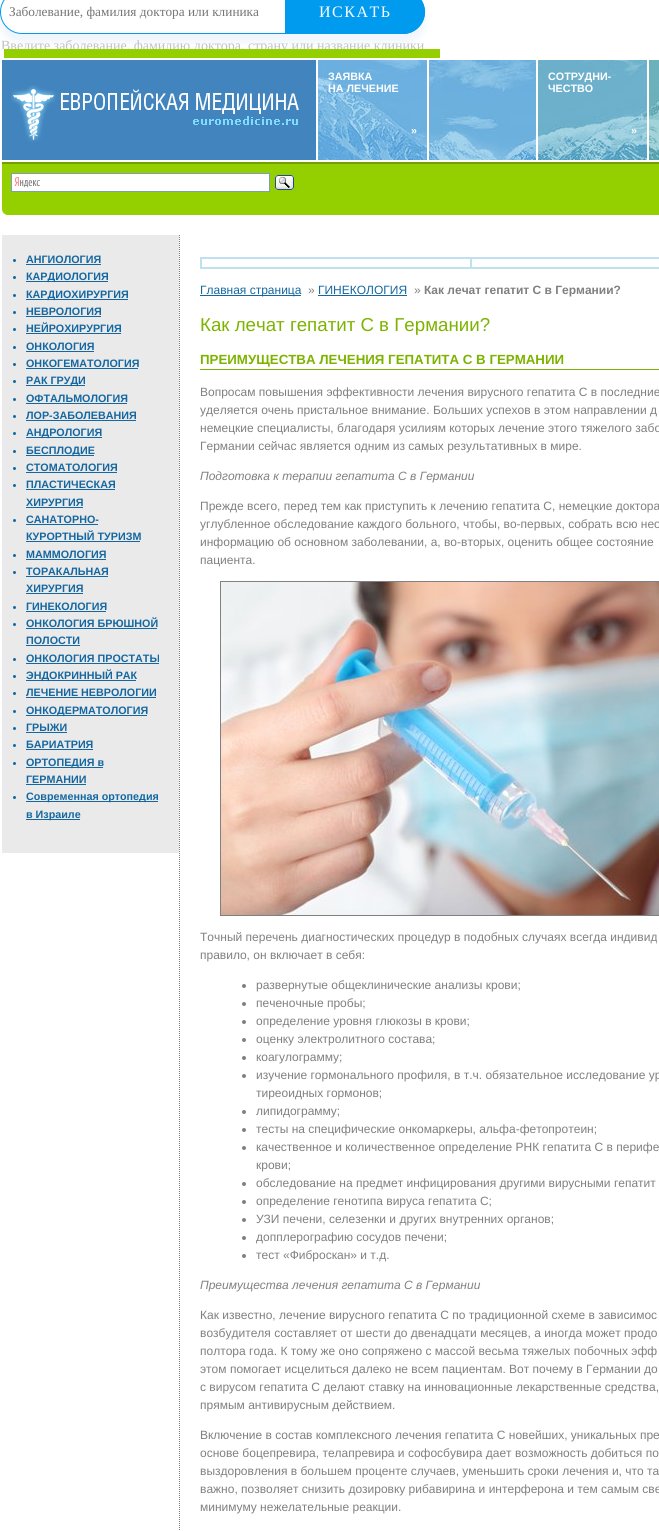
import math
import cairo


def use_color(cr, r, g, b):
  cr.set_source_rgb(r / 255, g / 255, b / 255)

def text(cr, x, y, s, family, size, color, bold=False, italic=False):
  cr.select_font_face(family, cairo.FONT_SLANT_ITALIC if italic else cairo.FONT_SLANT_NORMAL, cairo.FONT_WEIGHT_BOLD if bold else cairo.FONT_WEIGHT_NORMAL)
  cr.set_font_size(size)
  use_color(cr, *color)
  cr.move_to(x, y)
  cr.show_text(s)

def spaced_text(cr, x, y, s, letter, word):
  cr.move_to(x, y)
  for ch in s:
    cr.show_text(ch)
    cr.rel_move_to(letter + word * (ch == ' '), 0)

def box(cr, x, y, w, h, *color):
  use_color(cr, *color)
  cr.rectangle(x, y, w, h)
  cr.fill()

def round_rect(cr, x, y, w, h, r):
  cr.new_sub_path()
  for i, (u, v) in enumerate([(x + w - r, y + h - r), (x + r, y + h - r), (x + r, y + r), (x + w - r, y + r)]):
    cr.arc(u, v, r, i * math.pi / 2, (i + 1) * math.pi / 2)
  cr.close_path()

def shadow(cr, x, y, w, h, r, blur, alpha):
  cr.push_group_with_content(cairo.CONTENT_ALPHA)
  cr.set_operator(cairo.OPERATOR_SOURCE)
  for i in range(15, -16, -2):
    e = blur * i / 6
    if min(w, h) + 2 * e > 0:
      cr.set_source_rgba(0, 0, 0, alpha * math.erfc((i - 1) / 8.5) / 2)
      round_rect(cr, x - e, y - e, w + 2 * e, h + 2 * e, max(0, min(r + e + blur * .6, min(w, h) / 2 + e)))
      cr.fill()
  cr.mask(cr.pop_group())

def picture(cr, path, x, y, w, h):
  cr.save()
  cr.set_source_surface(cairo.ImageSurface.create_from_png(path), x, y)
  cr.rectangle(x, y, w, h)
  cr.fill()
  cr.restore()

def draw(cr):
  use_color(cr, 255, 255, 255)
  cr.paint()
  box(cr, 2, 60, 314, 100, 66, 132, 189)
  picture(cr, "img_01.png", 11, 85, 288, 57)
  picture(cr, "img_02.png", 318, 60, 109, 100)
  picture(cr, "img_03.png", 429, 60, 107, 100)
  picture(cr, "img_04.png", 538, 60, 109, 100)
  picture(cr, "img_05.png", 649, 60, 10, 100)
  box(cr, 2, 164, 657, 51, 148, 208, 0)
  picture(cr, "img_06.png", 2, 209, 5, 6)
  box(cr, 2, 162, 657, 2, 114, 160, 0)
  box(cr, 12, 174, 257, 17, 255, 255, 255)
  picture(cr, "img_07.png", 14, 177, 26, 11)
  cr.rectangle(11.5, 173.5, 258, 18)
  use_color(cr, 127, 157, 185)
  cr.set_line_width(1)
  cr.stroke()
  picture(cr, "img_08.png", 275, 175, 19, 15)
  box(cr, 2, 235, 177, 618, 234, 234, 234)
  use_color(cr, 20, 103, 160)
  cr.arc(14.5, 260.5, 1.5, 0, 2 * math.pi)
  cr.fill()
  box(cr, 26, 264, 75, 1, 20, 103, 160)
  cr.arc(14.5, 277.5, 1.5, 0, 2 * math.pi)
  cr.fill()
  box(cr, 26, 281, 82, 1, 20, 103, 160)
  cr.arc(14.5, 295.5, 1.5, 0, 2 * math.pi)
  cr.fill()
  box(cr, 26, 299, 102, 1, 20, 103, 160)
  cr.arc(14.5, 312.5, 1.5, 0, 2 * math.pi)
  cr.fill()
  box(cr, 26, 316, 75, 1, 20, 103, 160)
  cr.arc(14.5, 329.5, 1.5, 0, 2 * math.pi)
  cr.fill()
  box(cr, 26, 333, 95, 1, 20, 103, 160)
  cr.arc(14.5, 347.5, 1.5, 0, 2 * math.pi)
  cr.fill()
  box(cr, 26, 351, 68, 1, 20, 103, 160)
  cr.arc(14.5, 364.5, 1.5, 0, 2 * math.pi)
  cr.fill()
  box(cr, 26, 368, 112, 1, 20, 103, 160)
  cr.arc(14.5, 381.5, 1.5, 0, 2 * math.pi)
  cr.fill()
  box(cr, 26, 385, 59, 1, 20, 103, 160)
  cr.arc(14.5, 399.5, 1.5, 0, 2 * math.pi)
  cr.fill()
  box(cr, 26, 403, 101, 1, 20, 103, 160)
  cr.arc(14.5, 416.5, 1.5, 0, 2 * math.pi)
  cr.fill()
  box(cr, 26, 420, 110, 1, 20, 103, 160)
  cr.arc(14.5, 433.5, 1.5, 0, 2 * math.pi)
  cr.fill()
  box(cr, 26, 437, 76, 1, 20, 103, 160)
  cr.arc(14.5, 451.5, 1.5, 0, 2 * math.pi)
  cr.fill()
  box(cr, 26, 455, 68, 1, 20, 103, 160)
  cr.arc(14.5, 468.5, 1.5, 0, 2 * math.pi)
  cr.fill()
  box(cr, 26, 472, 91, 1, 20, 103, 160)
  cr.arc(14.5, 485.5, 1.5, 0, 2 * math.pi)
  cr.fill()
  box(cr, 26, 489, 89, 1, 20, 103, 160)
  box(cr, 26, 507, 57, 1, 20, 103, 160)
  cr.arc(14.5, 520.5, 1.5, 0, 2 * math.pi)
  cr.fill()
  box(cr, 26, 524, 72, 1, 20, 103, 160)
  box(cr, 26, 541, 114, 1, 20, 103, 160)
  cr.arc(14.5, 555.5, 1.5, 0, 2 * math.pi)
  cr.fill()
  box(cr, 26, 559, 80, 1, 20, 103, 160)
  cr.arc(14.5, 572.5, 1.5, 0, 2 * math.pi)
  cr.fill()
  box(cr, 26, 576, 82, 1, 20, 103, 160)
  box(cr, 26, 593, 57, 1, 20, 103, 160)
  cr.arc(14.5, 607.5, 1.5, 0, 2 * math.pi)
  cr.fill()
  box(cr, 26, 611, 80, 1, 20, 103, 160)
  cr.arc(14.5, 624.5, 1.5, 0, 2 * math.pi)
  cr.fill()
  box(cr, 26, 628, 131, 1, 20, 103, 160)
  box(cr, 26, 645, 54, 1, 20, 103, 160)
  cr.arc(14.5, 659.5, 1.5, 0, 2 * math.pi)
  cr.fill()
  box(cr, 26, 663, 133, 1, 20, 103, 160)
  cr.arc(14.5, 676.5, 1.5, 0, 2 * math.pi)
  cr.fill()
  box(cr, 26, 680, 110, 1, 20, 103, 160)
  cr.arc(14.5, 693.5, 1.5, 0, 2 * math.pi)
  cr.fill()
  box(cr, 26, 697, 130, 1, 20, 103, 160)
  cr.arc(14.5, 711.5, 1.5, 0, 2 * math.pi)
  cr.fill()
  box(cr, 26, 715, 121, 1, 20, 103, 160)
  cr.arc(14.5, 728.5, 1.5, 0, 2 * math.pi)
  cr.fill()
  box(cr, 26, 732, 41, 1, 20, 103, 160)
  cr.arc(14.5, 745.5, 1.5, 0, 2 * math.pi)
  cr.fill()
  box(cr, 26, 749, 67, 1, 20, 103, 160)
  cr.arc(14.5, 763.5, 1.5, 0, 2 * math.pi)
  cr.fill()
  box(cr, 26, 767, 77, 1, 20, 103, 160)
  box(cr, 26, 784, 60, 1, 20, 103, 160)
  cr.arc(14.5, 797.5, 1.5, 0, 2 * math.pi)
  cr.fill()
  box(cr, 26, 801, 132, 1, 20, 103, 160)
  box(cr, 26, 819, 54, 1, 20, 103, 160)
  cr.new_path()
  cr.move_to(179.5, 235)
  cr.line_to(179.5, 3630)
  use_color(cr, 128, 128, 128)
  cr.set_dash([1, 1])
  cr.stroke()
  box(cr, 470, 257, 189, 2, 192, 224, 241)
  box(cr, 470, 267, 189, 2, 192, 224, 241)
  box(cr, 470, 257, 2, 12, 192, 224, 241)
  box(cr, 200, 257, 272, 2, 192, 224, 241)
  box(cr, 200, 267, 272, 2, 192, 224, 241)
  box(cr, 200, 257, 2, 12, 192, 224, 241)
  box(cr, 200, 295, 101, 1, 20, 103, 160)
  box(cr, 318, 295, 89, 1, 20, 103, 160)
  box(cr, 200, 369, 459, 1, 125, 179, 0)
  cr.rectangle(220.5, 581.5, 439, 334)
  use_color(cr, 128, 128, 128)
  cr.set_dash([])
  cr.stroke()
  picture(cr, "img_09.png", 221, 582, 438, 333)
  cr.arc(244, 986, 2, 0, 2 * math.pi)
  cr.fill()
  cr.arc(244, 1004, 2, 0, 2 * math.pi)
  cr.fill()
  cr.arc(244, 1022, 2, 0, 2 * math.pi)
  cr.fill()
  cr.arc(244, 1040, 2, 0, 2 * math.pi)
  cr.fill()
  cr.arc(244, 1058, 2, 0, 2 * math.pi)
  cr.fill()
  cr.arc(244, 1076, 2, 0, 2 * math.pi)
  cr.fill()
  cr.arc(244, 1112, 2, 0, 2 * math.pi)
  cr.fill()
  cr.arc(244, 1130, 2, 0, 2 * math.pi)
  cr.fill()
  cr.arc(244, 1148, 2, 0, 2 * math.pi)
  cr.fill()
  cr.arc(244, 1184, 2, 0, 2 * math.pi)
  cr.fill()
  cr.arc(244, 1202, 2, 0, 2 * math.pi)
  cr.fill()
  cr.arc(244, 1220, 2, 0, 2 * math.pi)
  cr.fill()
  cr.arc(244, 1238, 2, 0, 2 * math.pi)
  cr.fill()
  cr.arc(244, 1256, 2, 0, 2 * math.pi)
  cr.fill()
  text(cr, 1, 50, "Введите заболевание, фамилию доктора, страну или название клиники", "Liberation Serif", 14, (194, 194, 194))
  box(cr, 4, 49, 436, 9, 148, 208, 0)
  box(cr, 2, 49, 2, 1, 255, 255, 255)
  use_color(cr, 58, 130, 207)
  shadow(cr, 0, -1, 425, 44, 22, 4, 0.08)
  use_color(cr, 255, 255, 255)
  round_rect(cr, 0.5, -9.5, 424, 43, 21.5)
  cr.fill_preserve()
  use_color(cr, 0, 154, 239)
  cr.stroke()
  cr.new_path()
  cr.move_to(285, -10)
  cr.line_to(403, -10)
  cr.curve_to(415, -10, 425, 0, 425, 12)
  cr.curve_to(425, 24, 415, 34, 403, 34)
  cr.line_to(285, 34)
  cr.close_path()
  cr.fill()
  cr.set_font_size(16)
  use_color(cr, 255, 255, 255)
  spaced_text(cr, 319, 17, "ИСКАТЬ", 1.5, 0)
  text(cr, 9, 16, "Заболевание, фамилия доктора или клиника", "Liberation Serif", 13.3, (117, 117, 117))
  text(cr, 328, 80, "ЗАЯВКА", "Liberation Sans", 10.75, (255, 255, 255), bold=True)
  text(cr, 328, 92, "НА ЛЕЧЕНИЕ", "Liberation Sans", 10.75, (255, 255, 255), bold=True)
  text(cr, 411, 134, "»", "Liberation Sans", 10.75, (255, 255, 255), bold=True)
  text(cr, 548, 80, "СОТРУДНИ-", "Liberation Sans", 10.75, (255, 255, 255), bold=True)
  text(cr, 548, 92, "ЧЕСТВО", "Liberation Sans", 10.75, (255, 255, 255), bold=True)
  text(cr, 631, 134, "»", "Liberation Sans", 10.75, (255, 255, 255), bold=True)
  text(cr, 26, 263, "АНГИОЛОГИЯ", "Liberation Sans", 10.75, (20, 103, 160), bold=True)
  text(cr, 26, 280, "КАРДИОЛОГИЯ", "Liberation Sans", 10.75, (20, 103, 160), bold=True)
  text(cr, 26, 298, "КАРДИОХИРУРГИЯ", "Liberation Sans", 10.75, (20, 103, 160), bold=True)
  text(cr, 26, 315, "НЕВРОЛОГИЯ", "Liberation Sans", 10.75, (20, 103, 160), bold=True)
  text(cr, 26, 332, "НЕЙРОХИРУРГИЯ", "Liberation Sans", 10.75, (20, 103, 160), bold=True)
  text(cr, 26, 350, "ОНКОЛОГИЯ", "Liberation Sans", 10.75, (20, 103, 160), bold=True)
  text(cr, 26, 367, "ОНКОГЕМАТОЛОГИЯ", "Liberation Sans", 10.75, (20, 103, 160), bold=True)
  text(cr, 26, 384, "РАК ГРУДИ", "Liberation Sans", 10.75, (20, 103, 160), bold=True)
  text(cr, 26, 402, "ОФТАЛЬМОЛОГИЯ", "Liberation Sans", 10.75, (20, 103, 160), bold=True)
  text(cr, 26, 419, "ЛОР-ЗАБОЛЕВАНИЯ", "Liberation Sans", 10.75, (20, 103, 160), bold=True)
  text(cr, 26, 436, "АНДРОЛОГИЯ", "Liberation Sans", 10.75, (20, 103, 160), bold=True)
  text(cr, 26, 454, "БЕСПЛОДИЕ", "Liberation Sans", 10.75, (20, 103, 160), bold=True)
  text(cr, 26, 471, "СТОМАТОЛОГИЯ", "Liberation Sans", 10.75, (20, 103, 160), bold=True)
  text(cr, 26, 488, "ПЛАСТИЧЕСКАЯ", "Liberation Sans", 10.75, (20, 103, 160), bold=True)
  text(cr, 26, 506, "ХИРУРГИЯ", "Liberation Sans", 10.75, (20, 103, 160), bold=True)
  text(cr, 26, 523, "САНАТОРНО-", "Liberation Sans", 10.75, (20, 103, 160), bold=True)
  text(cr, 26, 540, "КУРОРТНЫЙ ТУРИЗМ", "Liberation Sans", 10.75, (20, 103, 160), bold=True)
  text(cr, 26, 558, "МАММОЛОГИЯ", "Liberation Sans", 10.75, (20, 103, 160), bold=True)
  text(cr, 26, 575, "ТОРАКАЛЬНАЯ", "Liberation Sans", 10.75, (20, 103, 160), bold=True)
  text(cr, 26, 592, "ХИРУРГИЯ", "Liberation Sans", 10.75, (20, 103, 160), bold=True)
  text(cr, 26, 610, "ГИНЕКОЛОГИЯ", "Liberation Sans", 10.75, (20, 103, 160), bold=True)
  text(cr, 26, 627, "ОНКОЛОГИЯ БРЮШНОЙ", "Liberation Sans", 10.75, (20, 103, 160), bold=True)
  text(cr, 26, 644, "ПОЛОСТИ", "Liberation Sans", 10.75, (20, 103, 160), bold=True)
  text(cr, 26, 662, "ОНКОЛОГИЯ ПРОСТАТЫ", "Liberation Sans", 10.75, (20, 103, 160), bold=True)
  text(cr, 26, 679, "ЭНДОКРИННЫЙ РАК", "Liberation Sans", 10.75, (20, 103, 160), bold=True)
  text(cr, 26, 696, "ЛЕЧЕНИЕ НЕВРОЛОГИИ", "Liberation Sans", 10.75, (20, 103, 160), bold=True)
  text(cr, 26, 714, "ОНКОДЕРМАТОЛОГИЯ", "Liberation Sans", 10.75, (20, 103, 160), bold=True)
  text(cr, 26, 731, "ГРЫЖИ", "Liberation Sans", 10.75, (20, 103, 160), bold=True)
  text(cr, 26, 748, "БАРИАТРИЯ", "Liberation Sans", 10.75, (20, 103, 160), bold=True)
  text(cr, 26, 766, "ОРТОПЕДИЯ в", "Liberation Sans", 10.75, (20, 103, 160), bold=True)
  text(cr, 26, 783, "ГЕРМАНИИ", "Liberation Sans", 10.75, (20, 103, 160), bold=True)
  text(cr, 26, 800, "Современная ортопедия", "Liberation Sans", 10.75, (20, 103, 160), bold=True)
  text(cr, 26, 818, "в Израиле", "Liberation Sans", 10.75, (20, 103, 160), bold=True)
  text(cr, 200, 294, "Главная страница", "Liberation Sans", 12, (20, 103, 160))
  text(cr, 308, 294, "»", "Liberation Sans", 12, (128, 128, 128))
  text(cr, 318, 294, "ГИНЕКОЛОГИЯ", "Liberation Sans", 12, (20, 103, 160))
  text(cr, 414, 294, "»", "Liberation Sans", 12, (128, 128, 128))
  text(cr, 424, 294, "Как лечат гепатит С в Германии?", "Liberation Sans", 12, (128, 128, 128), bold=True)
  text(cr, 200, 331, "Как лечат гепатит С в Германии?", "Liberation Sans", 18.7, (125, 179, 0))
  text(cr, 200, 364, "ПРЕИМУЩЕСТВА ЛЕЧЕНИЯ ГЕПАТИТА С В ГЕРМАНИИ", "Liberation Sans", 13.3, (125, 179, 0), bold=True)
  text(cr, 200, 396, "Вопросам повышения эффективности лечения вирусного гепатита С в последние", "Liberation Sans", 12, (128, 128, 128))
  text(cr, 200, 414, "уделяется очень пристальное внимание. Больших успехов в этом направлении д", "Liberation Sans", 12, (128, 128, 128))
  text(cr, 200, 432, "немецкие специалисты, благодаря усилиям которых лечение этого тяжелого забо", "Liberation Sans", 12, (128, 128, 128))
  text(cr, 200, 450, "Германии сейчас является одним из самых результативных в мире.", "Liberation Sans", 12, (128, 128, 128))
  text(cr, 200, 480, "Подготовка к терапии гепатита С в Германии", "Liberation Sans", 12, (128, 128, 128), italic=True)
  text(cr, 200, 510, "Прежде всего, перед тем как приступить к лечению гепатита С, немецкие доктора", "Liberation Sans", 12, (128, 128, 128))
  text(cr, 200, 528, "углубленное обследование каждого больного, чтобы, во-первых, собрать всю нео", "Liberation Sans", 12, (128, 128, 128))
  text(cr, 200, 546, "информацию об основном заболевании, а, во-вторых, оценить общее состояние", "Liberation Sans", 12, (128, 128, 128))
  text(cr, 200, 564, "пациента.", "Liberation Sans", 12, (128, 128, 128))
  text(cr, 200, 941, "Точный перечень диагностических процедур в подобных случаях всегда индивид", "Liberation Sans", 12, (128, 128, 128))
  text(cr, 200, 959, "правило, он включает в себя:", "Liberation Sans", 12, (128, 128, 128))
  text(cr, 256, 989, "развернутые общеклинические анализы крови;", "Liberation Sans", 12, (128, 128, 128))
  text(cr, 256, 1007, "печеночные пробы;", "Liberation Sans", 12, (128, 128, 128))
  text(cr, 256, 1025, "определение уровня глюкозы в крови;", "Liberation Sans", 12, (128, 128, 128))
  text(cr, 256, 1043, "оценку электролитного состава;", "Liberation Sans", 12, (128, 128, 128))
  text(cr, 256, 1061, "коагулограмму;", "Liberation Sans", 12, (128, 128, 128))
  text(cr, 256, 1079, "изучение гормонального профиля, в т.ч. обязательное исследование ур", "Liberation Sans", 12, (128, 128, 128))
  text(cr, 256, 1097, "тиреоидных гормонов;", "Liberation Sans", 12, (128, 128, 128))
  text(cr, 256, 1115, "липидограмму;", "Liberation Sans", 12, (128, 128, 128))
  text(cr, 256, 1133, "тесты на специфические онкомаркеры, альфа-фетопротеин;", "Liberation Sans", 12, (128, 128, 128))
  text(cr, 256, 1151, "качественное и количественное определение РНК гепатита С в перифе", "Liberation Sans", 12, (128, 128, 128))
  text(cr, 256, 1169, "крови;", "Liberation Sans", 12, (128, 128, 128))
  text(cr, 256, 1187, "обследование на предмет инфицирования другими вирусными гепатит", "Liberation Sans", 12, (128, 128, 128))
  text(cr, 256, 1205, "определение генотипа вируса гепатита С;", "Liberation Sans", 12, (128, 128, 128))
  text(cr, 256, 1223, "УЗИ печени, селезенки и других внутренних органов;", "Liberation Sans", 12, (128, 128, 128))
  text(cr, 256, 1241, "допплерографию сосудов печени;", "Liberation Sans", 12, (128, 128, 128))
  text(cr, 256, 1259, "тест «Фиброскан» и т.д.", "Liberation Sans", 12, (128, 128, 128))
  text(cr, 200, 1289, "Преимущества лечения гепатита С в Германии", "Liberation Sans", 12, (128, 128, 128), italic=True)
  text(cr, 200, 1319, "Как известно, лечение вирусного гепатита С по традиционной схеме в зависимос", "Liberation Sans", 12, (128, 128, 128))
  text(cr, 200, 1337, "возбудителя составляет от шести до двенадцати месяцев, а иногда может продо", "Liberation Sans", 12, (128, 128, 128))
  text(cr, 200, 1355, "полтора года. К тому же оно сопряжено с массой весьма тяжелых побочных эфф", "Liberation Sans", 12, (128, 128, 128))
  text(cr, 200, 1373, "этом помогает исцелиться далеко не всем пациентам. Вот почему в Германии до", "Liberation Sans", 12, (128, 128, 128))
  text(cr, 200, 1391, "с вирусом гепатита С делают ставку на инновационные лекарственные средства,", "Liberation Sans", 12, (128, 128, 128))
  text(cr, 200, 1409, "прямым антивирусным действием.", "Liberation Sans", 12, (128, 128, 128))
  text(cr, 200, 1439, "Включение в состав комплексного лечения гепатита С новейших, уникальных пре", "Liberation Sans", 12, (128, 128, 128))
  text(cr, 200, 1457, "основе боцепревира, телапревира и софосбувира дает возможность добиться по", "Liberation Sans", 12, (128, 128, 128))
  text(cr, 200, 1475, "выздоровления в большем проценте случаев, уменьшить сроки лечения и, что та", "Liberation Sans", 12, (128, 128, 128))
  text(cr, 200, 1493, "важно, позволяет снизить дозировку рибавирина и интерферона и тем самым све", "Liberation Sans", 12, (128, 128, 128))
  text(cr, 200, 1511, "минимуму нежелательные реакции.", "Liberation Sans", 12, (128, 128, 128))


surface = cairo.ImageSurface(cairo.FORMAT_RGB24, 659, 1531)
cr = cairo.Context(surface)
options = cairo.FontOptions()
options.set_hint_metrics(cairo.HINT_METRICS_OFF)
options.set_hint_style(cairo.HINT_STYLE_NONE)
cr.set_font_options(options)
cr.set_miter_limit(4)
draw(cr)
surface.write_to_png("out.png")
